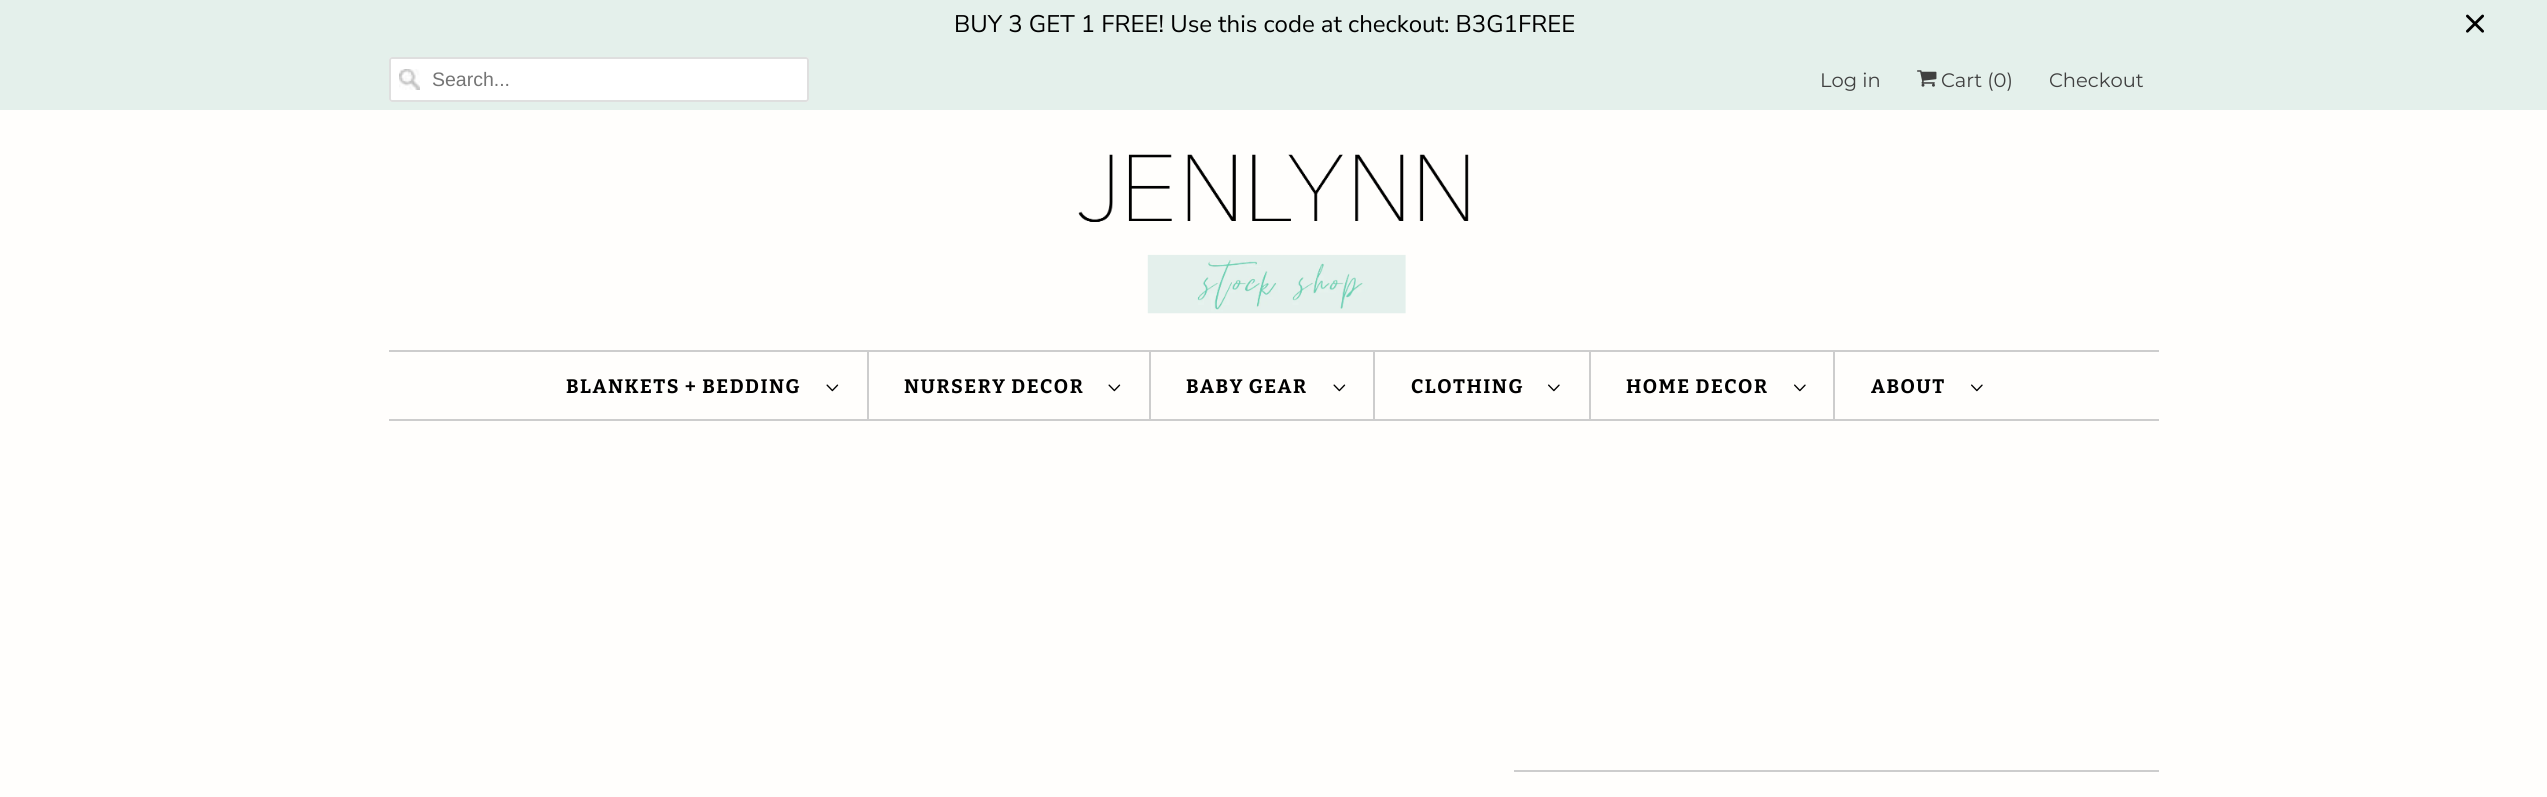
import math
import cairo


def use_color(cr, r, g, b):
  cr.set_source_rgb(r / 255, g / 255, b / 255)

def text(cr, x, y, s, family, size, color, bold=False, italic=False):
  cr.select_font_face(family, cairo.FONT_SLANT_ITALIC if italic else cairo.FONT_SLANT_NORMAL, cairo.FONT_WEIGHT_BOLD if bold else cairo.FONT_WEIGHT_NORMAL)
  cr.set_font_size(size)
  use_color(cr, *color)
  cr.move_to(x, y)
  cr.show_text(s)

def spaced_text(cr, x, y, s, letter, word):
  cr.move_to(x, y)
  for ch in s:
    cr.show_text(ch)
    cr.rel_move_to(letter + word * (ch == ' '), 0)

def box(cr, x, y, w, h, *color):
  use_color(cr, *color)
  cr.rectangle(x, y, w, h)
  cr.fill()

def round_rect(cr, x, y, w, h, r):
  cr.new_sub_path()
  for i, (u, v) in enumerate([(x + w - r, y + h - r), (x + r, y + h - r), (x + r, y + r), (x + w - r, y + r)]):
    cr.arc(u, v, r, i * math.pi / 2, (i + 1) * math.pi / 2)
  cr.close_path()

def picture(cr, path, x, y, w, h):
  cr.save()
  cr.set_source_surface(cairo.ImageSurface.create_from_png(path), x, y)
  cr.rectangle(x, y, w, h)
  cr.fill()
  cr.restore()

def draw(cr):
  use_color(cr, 255, 254, 252)
  cr.paint()
  box(cr, 0, 0, 2547, 110, 228, 240, 235)
  picture(cr, "img_01.png", 2466, 14, 18, 19)
  use_color(cr, 255, 255, 255)
  round_rect(cr, 389, 57, 420, 45, 3)
  cr.fill()
  picture(cr, "img_02.png", 399, 69, 21, 21)
  round_rect(cr, 390, 58, 418, 43, 2)
  use_color(cr, 223, 223, 223)
  cr.stroke()
  picture(cr, "img_03.png", 1917, 70, 20, 17)
  picture(cr, "img_04.png", 1078, 154, 391, 160)
  box(cr, 389, 350, 1770, 2, 205, 205, 205)
  box(cr, 389, 419, 1770, 2, 205, 205, 205)
  box(cr, 867, 351, 2, 68, 205, 205, 205)
  picture(cr, "img_05.png", 826, 384, 13, 8)
  box(cr, 1149, 351, 2, 68, 205, 205, 205)
  picture(cr, "img_05.png", 1108, 384, 13, 8)
  box(cr, 1373, 351, 2, 68, 205, 205, 205)
  picture(cr, "img_05.png", 1333, 384, 13, 8)
  box(cr, 1589, 351, 2, 68, 205, 205, 205)
  picture(cr, "img_06.png", 1548, 384, 12, 8)
  box(cr, 1833, 351, 2, 68, 205, 205, 205)
  picture(cr, "img_06.png", 1794, 384, 12, 8)
  picture(cr, "img_06.png", 1971, 384, 12, 8)
  box(cr, 1514, 770, 645, 2, 205, 205, 205)
  text(cr, 954, 32, "BUY 3 GET 1 FREE! Use this code at checkout: B3G1FREE", "Nunito Sans", 24, (0, 0, 0))
  text(cr, 432, 86, "Search...", "Liberation Sans", 19.5, (117, 117, 117))
  text(cr, 1820, 87, "Log in", "Montserrat", 19.5, (64, 64, 64))
  text(cr, 1941, 87, "Cart (0)", "Montserrat", 19.5, (64, 64, 64))
  text(cr, 2049, 87, "Checkout", "Montserrat", 19.5, (64, 64, 64))
  cr.select_font_face("Bitter", cairo.FONT_SLANT_NORMAL, cairo.FONT_WEIGHT_BOLD)
  use_color(cr, 0, 0, 0)
  spaced_text(cr, 566, 393, "BLANKETS + BEDDING", 1.5, 0)
  spaced_text(cr, 904, 393, "NURSERY DECOR", 1.5, 0)
  spaced_text(cr, 1186, 393, "BABY GEAR", 1.5, 0)
  spaced_text(cr, 1411, 393, "CLOTHING", 1.5, 0)
  spaced_text(cr, 1626, 393, "HOME DECOR", 1.5, 0)
  spaced_text(cr, 1871, 393, "ABOUT", 1.5, 0)


surface = cairo.ImageSurface(cairo.FORMAT_RGB24, 2547, 797)
cr = cairo.Context(surface)
options = cairo.FontOptions()
options.set_hint_metrics(cairo.HINT_METRICS_OFF)
options.set_hint_style(cairo.HINT_STYLE_NONE)
cr.set_font_options(options)
cr.set_miter_limit(4)
draw(cr)
surface.write_to_png("out.png")
